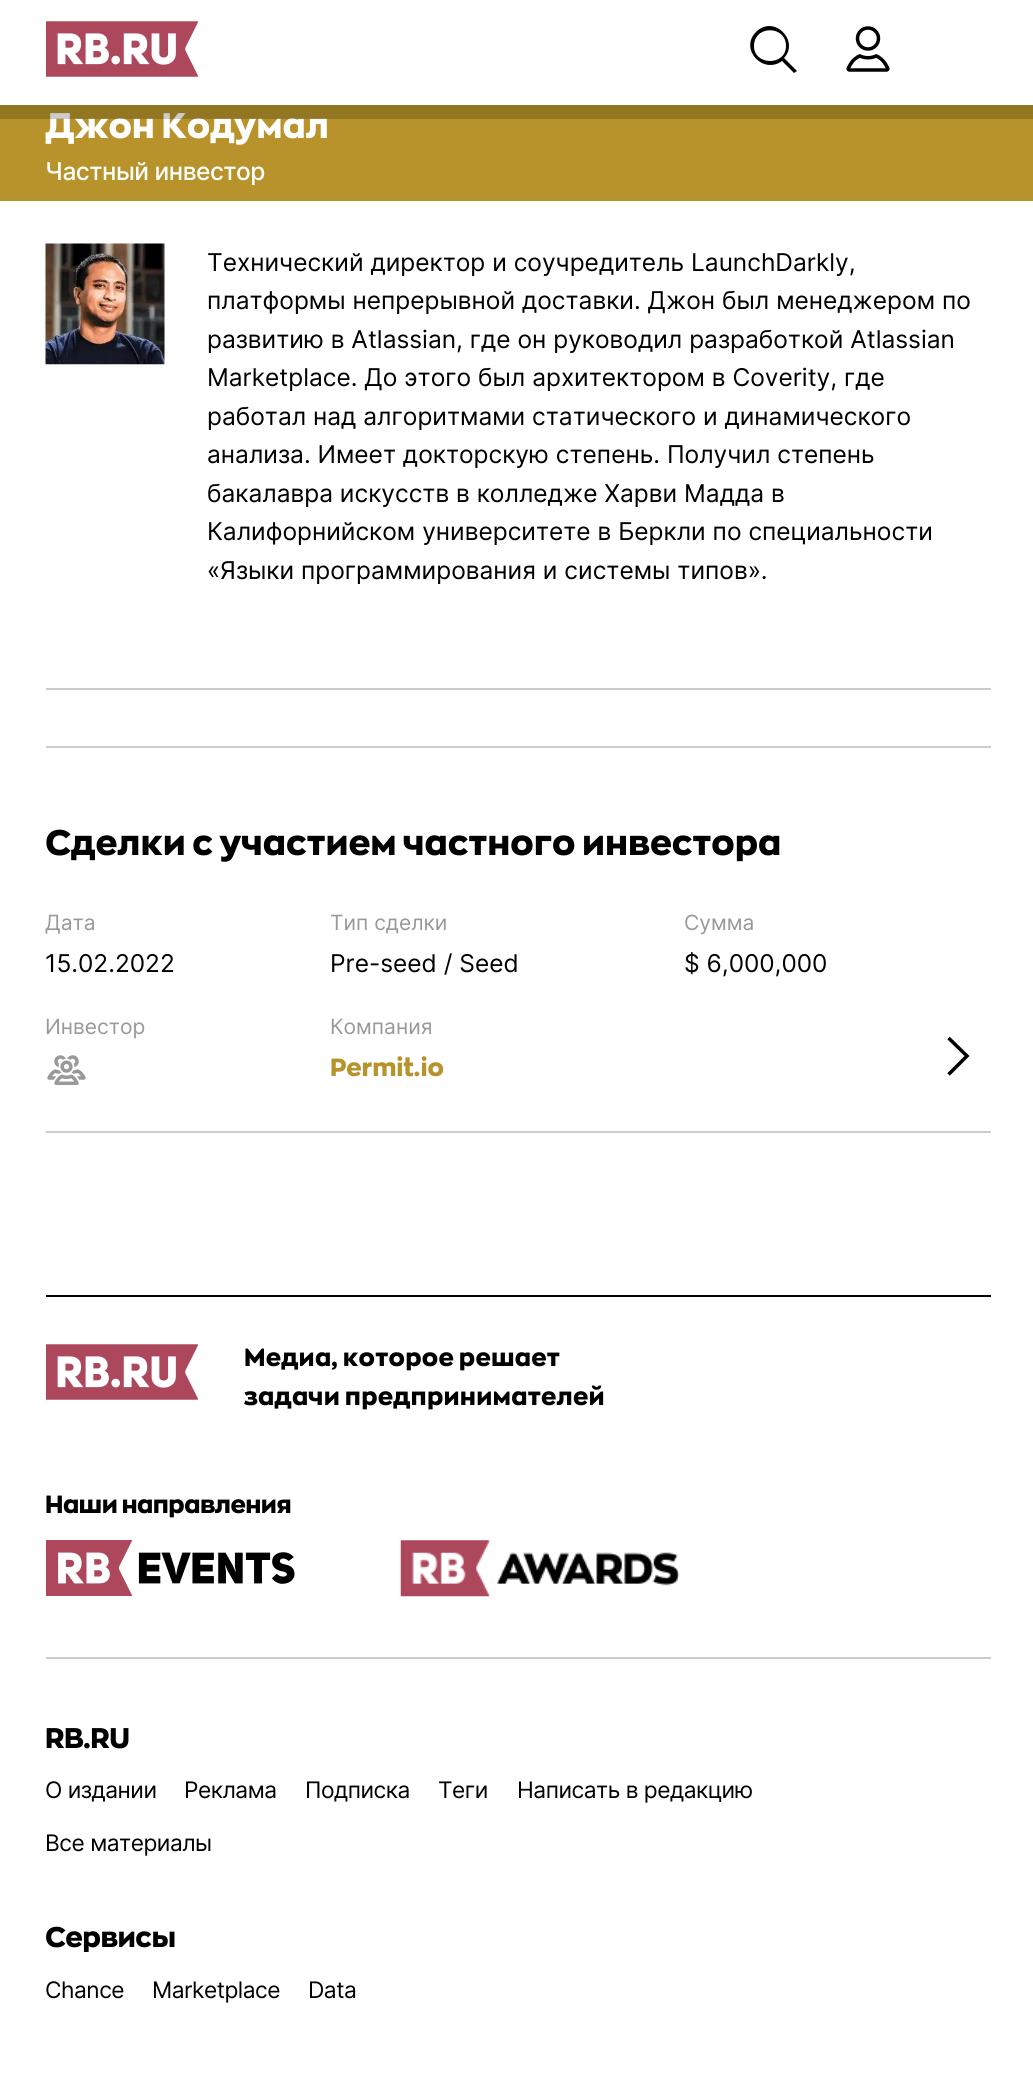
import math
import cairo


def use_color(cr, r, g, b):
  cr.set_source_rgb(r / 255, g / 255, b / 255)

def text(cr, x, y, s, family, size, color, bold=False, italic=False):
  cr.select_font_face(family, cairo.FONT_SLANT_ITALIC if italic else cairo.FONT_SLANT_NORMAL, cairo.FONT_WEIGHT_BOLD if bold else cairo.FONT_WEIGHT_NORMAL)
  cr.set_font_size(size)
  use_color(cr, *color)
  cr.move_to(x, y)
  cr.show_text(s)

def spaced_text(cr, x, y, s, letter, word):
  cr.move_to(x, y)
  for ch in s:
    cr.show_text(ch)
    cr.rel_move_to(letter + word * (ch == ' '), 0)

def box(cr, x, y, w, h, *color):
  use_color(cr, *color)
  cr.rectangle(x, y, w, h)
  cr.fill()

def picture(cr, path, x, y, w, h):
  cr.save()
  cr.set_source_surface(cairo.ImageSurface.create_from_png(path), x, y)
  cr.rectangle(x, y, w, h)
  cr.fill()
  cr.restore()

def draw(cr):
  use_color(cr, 255, 255, 255)
  cr.paint()
  picture(cr, "img_01.png", 46, 21, 153, 56)
  use_color(cr, 0, 0, 0)
  cr.set_fill_rule(cairo.FILL_RULE_EVEN_ODD)
  cr.new_path()
  cr.move_to(786, 46)
  cr.curve_to(786, 66, 754, 66, 754, 46)
  cr.curve_to(754, 25, 786, 25, 786, 46)
  cr.close_path()
  cr.move_to(782, 61)
  cr.curve_to(763, 75, 739, 49, 756, 32)
  cr.curve_to(774, 14, 800, 41, 784, 58)
  cr.line_to(797, 71)
  cr.line_to(794, 73)
  cr.close_path()
  cr.fill()
  picture(cr, "img_02.png", 846, 26, 44, 46)
  box(cr, 0, 105, 1033, 96, 184, 147, 43)
  picture(cr, "img_03.png", 45, 243, 120, 122)
  box(cr, 46, 688, 945, 2, 204, 204, 204)
  box(cr, 46, 746, 945, 2, 204, 204, 204)
  picture(cr, "img_04.png", 47, 1055, 39, 30)
  cr.new_path()
  cr.move_to(948.5, 1038)
  cr.line_to(967, 1056)
  cr.line_to(948.5, 1074.5)
  use_color(cr, 0, 0, 0)
  cr.set_line_width(3.5)
  cr.stroke()
  box(cr, 46, 1131, 945, 2, 204, 204, 204)
  box(cr, 46, 1295, 945, 2, 0, 0, 0)
  picture(cr, "img_05.png", 46, 1344, 152, 56)
  picture(cr, "img_06.png", 46, 1540, 249, 56)
  picture(cr, "img_07.png", 400, 1540, 280, 57)
  box(cr, 46, 1657, 945, 2, 204, 204, 204)
  text(cr, 45, 138, "Джон Кодумал", "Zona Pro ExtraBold", 35, (255, 255, 255))
  cr.set_source_rgba(0, 0, 0, 0.2)
  cr.rectangle(0, 105, 1033, 14)
  cr.fill()
  cr.select_font_face("Inter Medium")
  cr.set_font_size(24.5)
  use_color(cr, 255, 255, 255)
  spaced_text(cr, 45, 180, "Частный инвестор", -0.5, 0)
  text(cr, 207, 271, "Технический директор и соучредитель LaunchDarkly,", "Inter", 24.5, (0, 0, 0))
  text(cr, 207, 309, "платформы непрерывной доставки. Джон был менеджером по", "Inter", 24.5, (0, 0, 0))
  text(cr, 207, 348, "развитию в Atlassian, где он руководил разработкой Atlassian", "Inter", 24.5, (0, 0, 0))
  text(cr, 207, 386, "Marketplace. До этого был архитектором в Coverity, где", "Inter", 24.5, (0, 0, 0))
  text(cr, 207, 425, "работал над алгоритмами статического и динамического", "Inter", 24.5, (0, 0, 0))
  text(cr, 207, 463, "анализа. Имеет докторскую степень. Получил степень", "Inter", 24.5, (0, 0, 0))
  text(cr, 207, 502, "бакалавра искусств в колледже Харви Мадда в", "Inter", 24.5, (0, 0, 0))
  text(cr, 207, 540, "Калифорнийском университете в Беркли по специальности", "Inter", 24.5, (0, 0, 0))
  text(cr, 207, 579, "«Языки программирования и системы типов».", "Inter", 24.5, (0, 0, 0))
  text(cr, 45, 855, "Сделки с участием частного инвестора", "Zona Pro ExtraBold", 35, (0, 0, 0))
  text(cr, 45, 930, "Дата", "Inter", 21, (153, 153, 153))
  text(cr, 45, 972, "15.02.2022", "Inter", 24.5, (0, 0, 0))
  text(cr, 330, 930, "Тип сделки", "Inter", 21, (153, 153, 153))
  text(cr, 330, 972, "Pre-seed / Seed", "Inter", 24.5, (0, 0, 0))
  text(cr, 684, 930, "Сумма", "Inter", 21, (153, 153, 153))
  text(cr, 684, 972, "$ 6,000,000", "Inter", 24.5, (0, 0, 0))
  text(cr, 45, 1034, "Инвестор", "Inter", 21, (153, 153, 153))
  text(cr, 330, 1034, "Компания", "Inter", 21, (153, 153, 153))
  text(cr, 330, 1076, "Permit.io", "Zona Pro ExtraBold", 24.5, (184, 147, 43))
  use_color(cr, 0, 0, 0)
  spaced_text(cr, 244, 1366, "Медиа, которое решает", 0.25, 0)
  spaced_text(cr, 244, 1405, "задачи предпринимателей", 0.25, 0)
  spaced_text(cr, 45, 1513, "Наши направления", -0.5, 0)
  cr.set_font_size(28)
  spaced_text(cr, 45, 1748, "RB.RU", -0.5, 0)
  cr.select_font_face("Inter")
  cr.set_font_size(22.75)
  spaced_text(cr, 45, 1798, "О издании", -0.5, 0)
  spaced_text(cr, 184, 1798, "Реклама", -0.5, 0)
  spaced_text(cr, 305, 1798, "Подписка", -0.5, 0)
  spaced_text(cr, 438, 1798, "Теги", -0.5, 0)
  spaced_text(cr, 517, 1798, "Написать в редакцию", -0.5, 0)
  spaced_text(cr, 45, 1851, "Все материалы", -0.5, 0)
  cr.select_font_face("Zona Pro ExtraBold")
  cr.set_font_size(28)
  spaced_text(cr, 45, 1947, "Сервисы", -0.5, 0)
  cr.select_font_face("Inter")
  cr.set_font_size(22.75)
  spaced_text(cr, 45, 1998, "Chance", -0.5, 0)
  spaced_text(cr, 152, 1998, "Marketplace", -0.5, 0)
  spaced_text(cr, 308, 1998, "Data", -0.5, 0)


surface = cairo.ImageSurface(cairo.FORMAT_RGB24, 1033, 2083)
cr = cairo.Context(surface)
options = cairo.FontOptions()
options.set_hint_metrics(cairo.HINT_METRICS_OFF)
options.set_hint_style(cairo.HINT_STYLE_NONE)
cr.set_font_options(options)
cr.set_miter_limit(4)
draw(cr)
surface.write_to_png("out.png")
